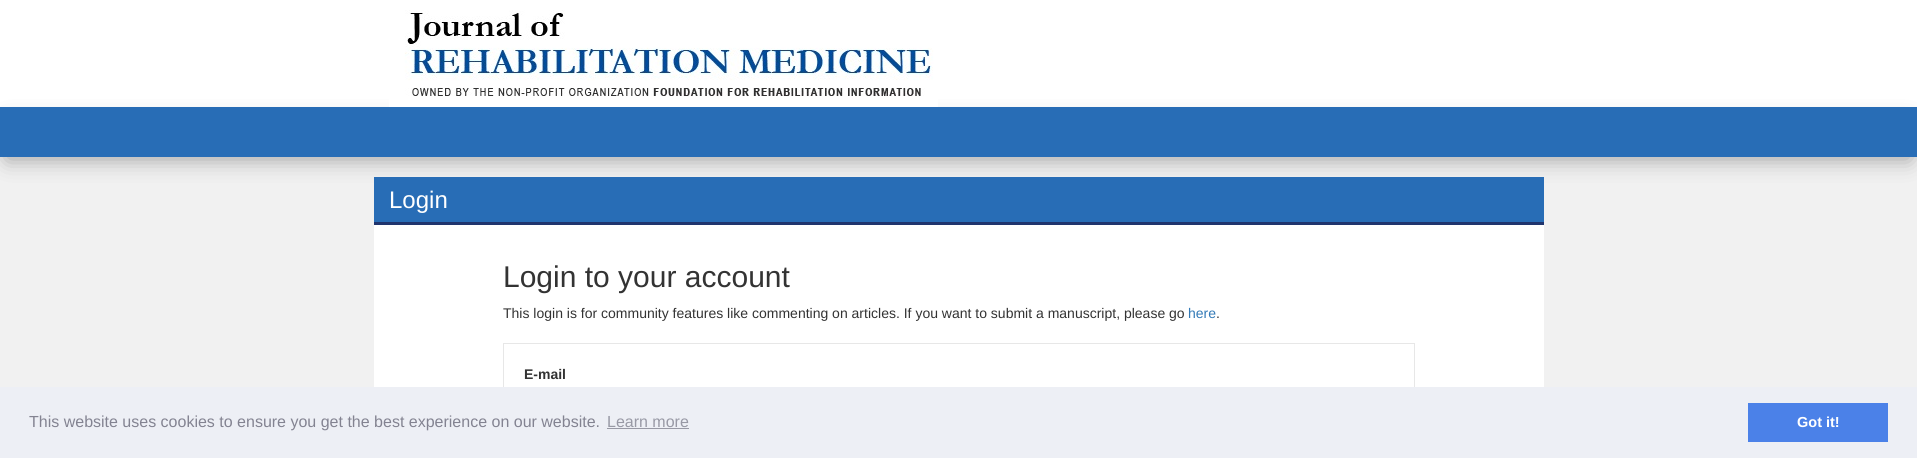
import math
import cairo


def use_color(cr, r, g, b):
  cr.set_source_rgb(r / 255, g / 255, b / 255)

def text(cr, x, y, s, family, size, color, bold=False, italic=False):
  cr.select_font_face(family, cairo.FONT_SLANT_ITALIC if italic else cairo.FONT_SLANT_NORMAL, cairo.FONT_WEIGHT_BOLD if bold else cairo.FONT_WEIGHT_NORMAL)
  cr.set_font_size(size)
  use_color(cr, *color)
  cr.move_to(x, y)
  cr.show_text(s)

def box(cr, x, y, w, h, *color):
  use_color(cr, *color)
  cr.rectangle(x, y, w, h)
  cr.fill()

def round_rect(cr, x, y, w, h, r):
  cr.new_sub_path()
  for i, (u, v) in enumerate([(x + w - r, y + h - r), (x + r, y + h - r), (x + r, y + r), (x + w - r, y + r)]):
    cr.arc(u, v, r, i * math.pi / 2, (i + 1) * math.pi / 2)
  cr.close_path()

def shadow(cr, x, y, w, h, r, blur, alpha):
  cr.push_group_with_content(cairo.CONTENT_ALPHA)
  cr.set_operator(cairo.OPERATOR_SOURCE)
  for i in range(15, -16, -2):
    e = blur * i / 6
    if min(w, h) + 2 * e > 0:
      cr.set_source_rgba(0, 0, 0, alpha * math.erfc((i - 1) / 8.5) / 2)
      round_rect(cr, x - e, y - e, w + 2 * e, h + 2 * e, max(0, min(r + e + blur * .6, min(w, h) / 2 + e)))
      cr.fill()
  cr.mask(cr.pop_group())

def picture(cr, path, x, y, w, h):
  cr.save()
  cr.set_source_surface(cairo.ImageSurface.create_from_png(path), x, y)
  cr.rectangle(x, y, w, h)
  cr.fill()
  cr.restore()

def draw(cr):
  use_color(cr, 241, 241, 241)
  cr.paint()
  box(cr, 0, 0, 1917, 107, 255, 255, 255)
  use_color(cr, 0, 0, 0)
  shadow(cr, 7, 123, 1903, 36, 0, 11, 0.35)
  picture(cr, "img_01.png", 389, 10, 549, 97)
  box(cr, 0, 107, 1917, 50, 40, 109, 182)
  box(cr, 374, 177, 1170, 45, 40, 109, 182)
  box(cr, 374, 222, 1170, 3, 32, 52, 109)
  box(cr, 374, 225, 1170, 162, 255, 255, 255)
  cr.rectangle(503.5, 343.5, 911, 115)
  use_color(cr, 231, 231, 231)
  cr.set_line_width(1)
  cr.stroke()
  box(cr, 0, 387, 1917, 71, 237, 239, 245)
  box(cr, 607, 428, 82, 1, 152, 153, 165)
  box(cr, 1748, 403, 140, 39, 75, 129, 232)
  text(cr, 389, 208, "Login", "Liberation Sans", 24, (255, 255, 255))
  text(cr, 503, 287, "Login to your account", "Liberation Sans", 30, (51, 51, 51))
  text(cr, 503, 318, "This login is for community features like commenting on articles. If you want to submit a manuscript, please go", "Liberation Sans", 14, (51, 51, 51))
  text(cr, 1188, 318, "here", "Liberation Sans", 14, (51, 122, 183))
  text(cr, 1216, 318, ".", "Liberation Sans", 14, (51, 51, 51))
  text(cr, 524, 379, "E-mail", "Liberation Sans", 14, (51, 51, 51), bold=True)
  text(cr, 29, 427, "This website uses cookies to ensure you get the best experience on our website.", "Liberation Sans", 16, (131, 131, 145))
  text(cr, 607, 427, "Learn more", "Liberation Sans", 16, (152, 153, 165))
  text(cr, 1797, 427, "Got it!", "Liberation Sans", 14.5, (255, 255, 255), bold=True)


surface = cairo.ImageSurface(cairo.FORMAT_RGB24, 1917, 458)
cr = cairo.Context(surface)
options = cairo.FontOptions()
options.set_hint_metrics(cairo.HINT_METRICS_OFF)
options.set_hint_style(cairo.HINT_STYLE_NONE)
cr.set_font_options(options)
cr.set_miter_limit(4)
draw(cr)
surface.write_to_png("out.png")
